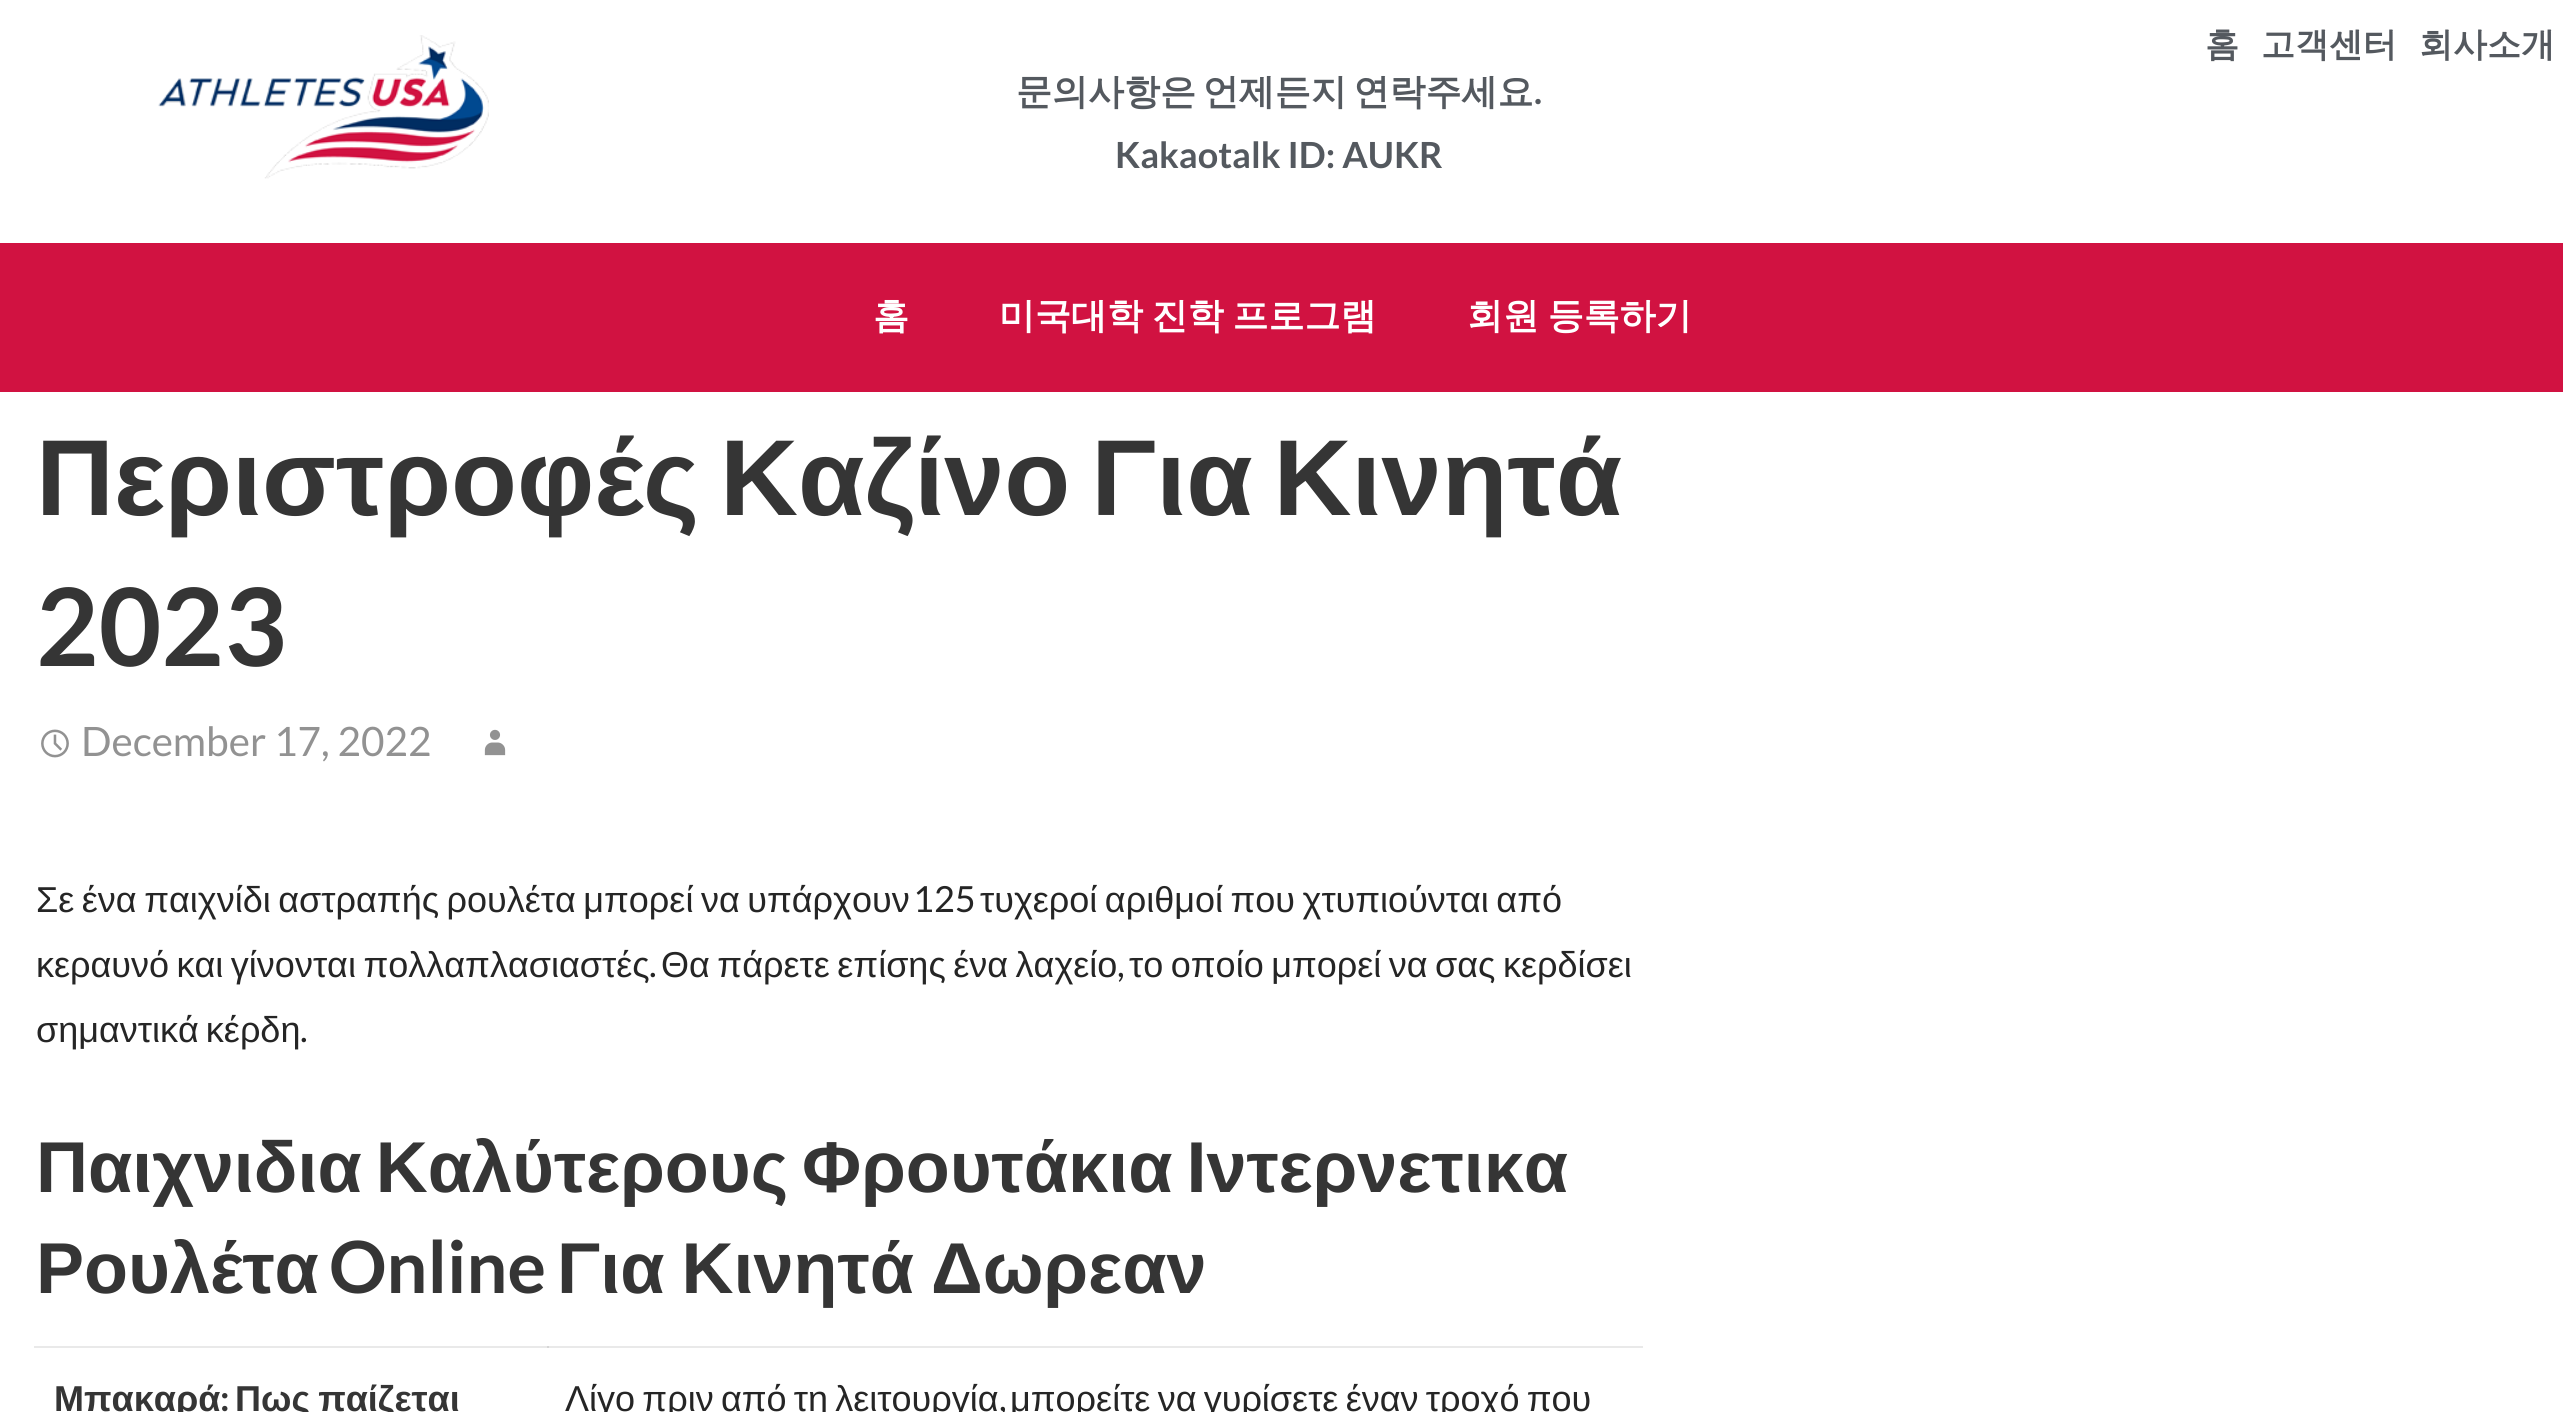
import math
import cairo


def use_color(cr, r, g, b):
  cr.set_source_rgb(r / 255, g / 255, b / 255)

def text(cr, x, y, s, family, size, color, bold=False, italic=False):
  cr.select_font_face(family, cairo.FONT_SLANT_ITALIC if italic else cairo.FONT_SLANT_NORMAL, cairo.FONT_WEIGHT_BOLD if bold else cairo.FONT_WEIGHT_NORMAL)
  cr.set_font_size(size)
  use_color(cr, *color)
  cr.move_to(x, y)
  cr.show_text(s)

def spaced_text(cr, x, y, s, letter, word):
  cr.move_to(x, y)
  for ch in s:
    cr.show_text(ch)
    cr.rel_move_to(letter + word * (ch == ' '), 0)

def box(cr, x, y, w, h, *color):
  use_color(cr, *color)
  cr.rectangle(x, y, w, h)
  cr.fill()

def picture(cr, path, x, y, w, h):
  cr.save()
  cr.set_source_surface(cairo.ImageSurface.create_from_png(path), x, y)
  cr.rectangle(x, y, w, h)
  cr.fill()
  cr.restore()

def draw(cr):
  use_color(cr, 255, 255, 255)
  cr.paint()
  box(cr, 34, 1346, 1609, 2, 233, 233, 233)
  picture(cr, "img_01.png", 158, 35, 331, 144)
  box(cr, 0, 243, 2563, 149, 209, 18, 65)
  picture(cr, "img_02.png", 41, 729, 28, 29)
  picture(cr, "img_03.png", 484, 729, 22, 27)
  box(cr, 547, 1346, 2, 2, 213, 213, 213)
  cr.select_font_face("WenQuanYi Zen Hei", cairo.FONT_SLANT_NORMAL, cairo.FONT_WEIGHT_BOLD)
  cr.set_font_size(36)
  use_color(cr, 84, 89, 95)
  spaced_text(cr, 1016, 104, "문의사항은 언제든지 연락주세요", 0, -4)
  text(cr, 1534, 104, ".", "Lato", 36, (84, 89, 95), bold=True)
  text(cr, 1115, 168, "Kakaotalk ID: AUKR", "Lato", 36, (84, 89, 95), bold=True)
  text(cr, 2205, 56, "홈", "WenQuanYi Zen Hei", 34, (84, 89, 95), bold=True)
  text(cr, 2261, 56, "고객센터", "WenQuanYi Zen Hei", 34, (84, 89, 95), bold=True)
  text(cr, 2419, 56, "회사소개", "WenQuanYi Zen Hei", 34, (84, 89, 95), bold=True)
  text(cr, 873, 328, "홈", "WenQuanYi Zen Hei", 36, (255, 255, 255), bold=True)
  spaced_text(cr, 999, 328, "미국대학 진학 프로그램", 0, -2)
  spaced_text(cr, 1467, 328, "회원 등록하기", 0, -2)
  cr.select_font_face("Liberation Sans", cairo.FONT_SLANT_NORMAL, cairo.FONT_WEIGHT_BOLD)
  cr.set_font_size(108)
  use_color(cr, 53, 53, 53)
  spaced_text(cr, 36, 515, "Περιστροφές Καζίνο Για Κινητά", 0, -9)
  text(cr, 36, 666, "2023", "Lato", 108, (53, 53, 53), bold=True)
  text(cr, 81, 756, "December 17, 2022", "Lato", 40.5, (146, 146, 146))
  cr.select_font_face("Liberation Sans")
  cr.set_font_size(36)
  use_color(cr, 37, 37, 37)
  spaced_text(cr, 36, 912, "Σε ένα παιχνίδι αστραπής ρουλέτα μπορεί να υπάρχουν", 0, -2.5)
  text(cr, 913, 912, "125", "Lato", 36, (37, 37, 37))
  cr.select_font_face("Liberation Sans")
  spaced_text(cr, 980, 912, "τυχεροί αριθμοί που χτυπιούνται από", 0, -2.5)
  spaced_text(cr, 36, 977, "κεραυνό και γίνονται πολλαπλασιαστές", 0, -2.5)
  text(cr, 649, 977, ".", "Lato", 36, (37, 37, 37))
  cr.select_font_face("Liberation Sans")
  spaced_text(cr, 661, 977, "Θα πάρετε επίσης ένα λαχείο", 0, -2.5)
  text(cr, 1117, 977, ",", "Lato", 36, (37, 37, 37))
  cr.select_font_face("Liberation Sans")
  spaced_text(cr, 1129, 977, "το οποίο μπορεί να σας κερδίσει", 0, -2.5)
  spaced_text(cr, 36, 1042, "σημαντικά κέρδη", 0, -3)
  text(cr, 300, 1042, ".", "Lato", 36, (37, 37, 37))
  cr.select_font_face("Liberation Sans", cairo.FONT_SLANT_NORMAL, cairo.FONT_WEIGHT_BOLD)
  cr.set_font_size(72)
  use_color(cr, 53, 53, 53)
  spaced_text(cr, 36, 1192, "Παιχνιδια Καλύτερους Φρουτάκια Ιντερνετικα", 0, -6)
  text(cr, 36, 1293, "Ρουλέτα", "Liberation Sans", 72, (53, 53, 53), bold=True)
  text(cr, 329, 1293, "Online", "Lato", 72, (53, 53, 53), bold=True)
  cr.select_font_face("Liberation Sans", cairo.FONT_SLANT_NORMAL, cairo.FONT_WEIGHT_BOLD)
  spaced_text(cr, 557, 1293, "Για Κινητά Δωρεαν", 0, -3)
  text(cr, 54, 1411, "Μπακαρά", "Liberation Sans", 36, (53, 53, 53), bold=True)
  text(cr, 220, 1411, ":", "Lato", 36, (53, 53, 53), bold=True)
  cr.select_font_face("Liberation Sans", cairo.FONT_SLANT_NORMAL, cairo.FONT_WEIGHT_BOLD)
  spaced_text(cr, 235, 1411, "Πως παίζεται", 0, -2)
  cr.select_font_face("Liberation Sans")
  use_color(cr, 37, 37, 37)
  spaced_text(cr, 565, 1411, "Λίγο πριν από τη λειτουργία", 0, -2.75)
  text(cr, 999, 1411, ",", "Lato", 36, (37, 37, 37))
  cr.select_font_face("Liberation Sans")
  spaced_text(cr, 1010, 1411, "μπορείτε να γυρίσετε έναν τροχό που", 0, -2.75)


surface = cairo.ImageSurface(cairo.FORMAT_RGB24, 2563, 1412)
cr = cairo.Context(surface)
options = cairo.FontOptions()
options.set_hint_metrics(cairo.HINT_METRICS_OFF)
options.set_hint_style(cairo.HINT_STYLE_NONE)
cr.set_font_options(options)
cr.set_miter_limit(4)
draw(cr)
surface.write_to_png("out.png")
